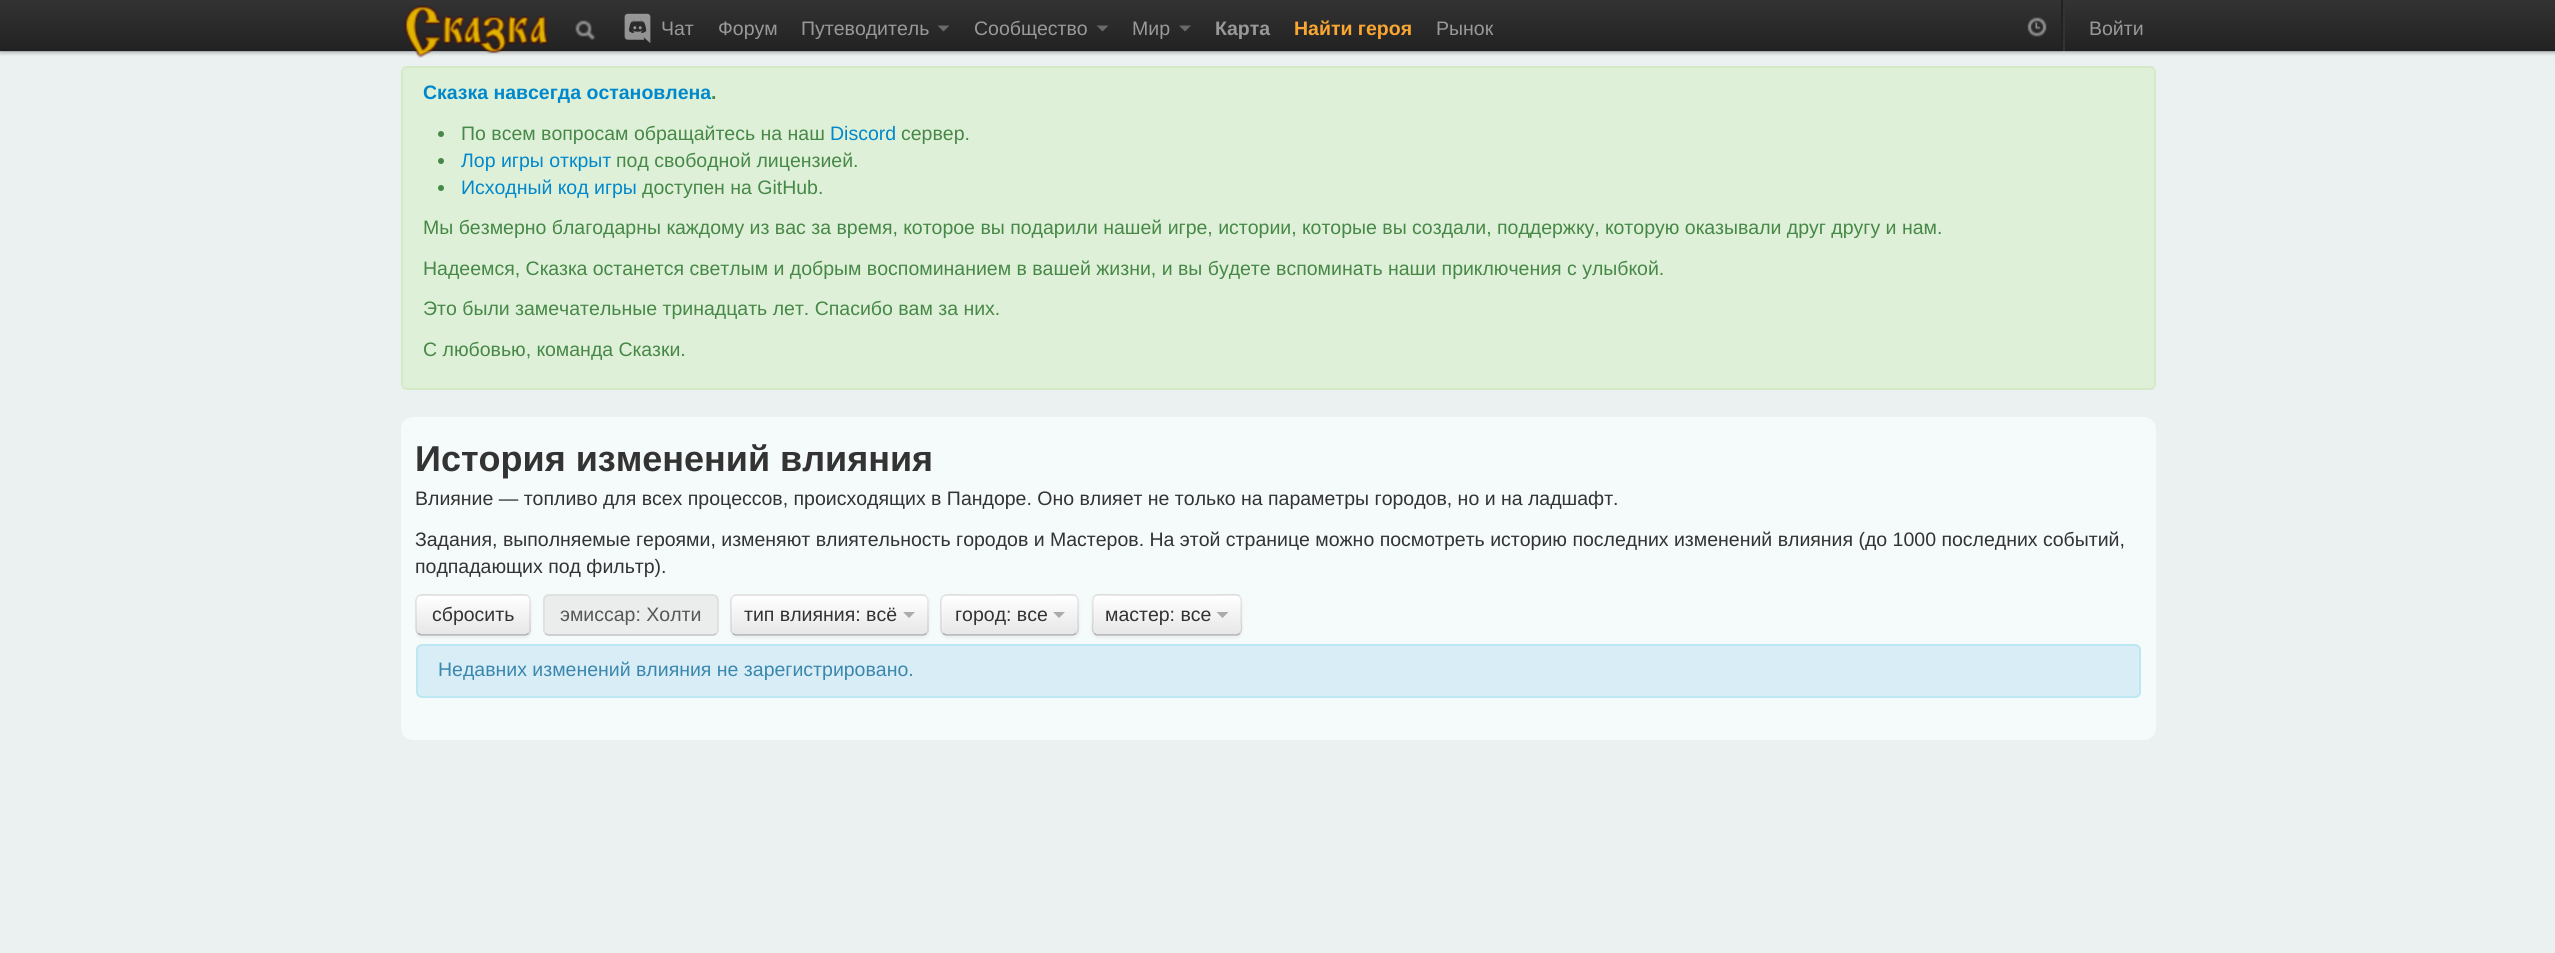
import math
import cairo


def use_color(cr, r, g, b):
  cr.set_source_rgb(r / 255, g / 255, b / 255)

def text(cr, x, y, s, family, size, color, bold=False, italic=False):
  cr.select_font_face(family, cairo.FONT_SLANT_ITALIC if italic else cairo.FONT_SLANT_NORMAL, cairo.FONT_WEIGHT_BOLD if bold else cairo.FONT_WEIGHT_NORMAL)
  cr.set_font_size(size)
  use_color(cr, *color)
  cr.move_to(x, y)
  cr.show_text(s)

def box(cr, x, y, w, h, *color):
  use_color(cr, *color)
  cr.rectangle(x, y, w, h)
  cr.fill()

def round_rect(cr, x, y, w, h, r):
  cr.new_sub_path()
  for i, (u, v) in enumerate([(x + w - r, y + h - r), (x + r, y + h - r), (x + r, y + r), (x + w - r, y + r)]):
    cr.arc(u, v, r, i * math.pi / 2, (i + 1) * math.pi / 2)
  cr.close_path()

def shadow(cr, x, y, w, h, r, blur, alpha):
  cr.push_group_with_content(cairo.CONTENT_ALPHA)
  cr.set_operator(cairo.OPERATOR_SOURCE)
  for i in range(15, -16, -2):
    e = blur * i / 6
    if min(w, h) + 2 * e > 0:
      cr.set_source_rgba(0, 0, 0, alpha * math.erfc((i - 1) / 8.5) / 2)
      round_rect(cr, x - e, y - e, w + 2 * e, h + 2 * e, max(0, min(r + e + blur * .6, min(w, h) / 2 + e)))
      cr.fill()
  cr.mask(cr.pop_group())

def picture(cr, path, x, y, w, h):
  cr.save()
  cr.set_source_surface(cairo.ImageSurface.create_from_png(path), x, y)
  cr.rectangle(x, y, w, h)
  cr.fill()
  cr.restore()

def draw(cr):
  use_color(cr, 235, 240, 240)
  cr.paint()
  use_color(cr, 0, 0, 0)
  shadow(cr, 0, 2, 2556, 51, 0, 2, 0.25)
  gradient = cairo.LinearGradient(1278, 0, 1278, 51)
  gradient.add_color_stop_rgba(0, 0.2, 0.2, 0.2, 1)
  gradient.add_color_stop_rgba(1, 0.133, 0.133, 0.133, 1)
  cr.set_source(gradient)
  cr.rectangle(0, 0, 2555, 51)
  cr.fill()
  cr.set_source_rgba(0, 0, 0, 0.1)
  cr.rectangle(0, 50, 2555, 2)
  cr.fill()
  picture(cr, "img_01.png", 404, 5, 145, 53)
  picture(cr, "img_02.png", 575, 20, 21, 20)
  picture(cr, "img_03.png", 624, 13, 27, 30)
  use_color(cr, 106, 106, 106)
  cr.new_path()
  cr.move_to(937.5, 25.5)
  cr.line_to(949.5, 25.5)
  cr.line_to(943.5, 31.5)
  cr.close_path()
  cr.fill()
  cr.new_path()
  cr.move_to(1096.5, 25.5)
  cr.line_to(1108.5, 25.5)
  cr.line_to(1102.5, 31.5)
  cr.close_path()
  cr.fill()
  cr.new_path()
  cr.move_to(1179, 25.5)
  cr.line_to(1191, 25.5)
  cr.line_to(1185, 31.5)
  cr.close_path()
  cr.fill()
  picture(cr, "img_04.png", 2027, 17, 20, 20)
  box(cr, 2061, 0, 2, 51, 34, 34, 34)
  box(cr, 2063, 0, 2, 51, 51, 51, 51)
  use_color(cr, 223, 240, 216)
  round_rect(cr, 402, 67, 1753, 322, 5)
  cr.fill_preserve()
  use_color(cr, 214, 233, 198)
  cr.stroke()
  use_color(cr, 70, 136, 71)
  cr.arc(441, 134, 3, 0, 2 * math.pi)
  cr.fill()
  cr.arc(441, 161, 3, 0, 2 * math.pi)
  cr.fill()
  cr.arc(441, 188, 3, 0, 2 * math.pi)
  cr.fill()
  use_color(cr, 245, 250, 250)
  round_rect(cr, 401, 417, 1755, 323, 12)
  cr.fill()
  use_color(cr, 0, 0, 0)
  shadow(cr, 416, 596, 115, 42, 6, 1.5, 0.05)
  use_color(cr, 245, 245, 245)
  round_rect(cr, 416, 594, 115, 42, 6)
  cr.fill()
  cr.save()
  round_rect(cr, 416, 594, 115, 42, 6)
  cr.clip()
  gradient = cairo.LinearGradient(473, 596, 473, 635)
  gradient.add_color_stop_rgba(0, 1, 1, 1, 1)
  gradient.add_color_stop_rgba(1, 0.902, 0.902, 0.902, 1)
  cr.set_source(gradient)
  cr.rectangle(416, 596, 115, 39)
  cr.fill()
  cr.restore()
  cr.new_path()
  cr.move_to(528.5, 633.5)
  cr.line_to(525.5, 635)
  cr.line_to(421, 635)
  cr.line_to(418, 633.5)
  cr.set_source_rgba(0, 0, 0, 0.25)
  cr.set_line_width(1.5)
  cr.stroke()
  cr.new_path()
  cr.move_to(418, 633.5)
  cr.curve_to(415.5, 631.5, 416, 628, 416, 625)
  cr.line_to(416, 615)
  cr.curve_to(416, 591.5, 413.5, 595, 439, 595)
  cr.line_to(508, 595)
  cr.curve_to(533, 595, 530, 591.5, 530, 615)
  cr.line_to(530, 625)
  cr.curve_to(530, 628, 531, 631.5, 528.5, 633.5)
  cr.set_source_rgba(0, 0, 0, 0.1)
  cr.stroke()
  use_color(cr, 235, 237, 237)
  round_rect(cr, 543, 594, 176, 42, 6)
  cr.fill()
  cr.new_path()
  cr.move_to(716, 633.5)
  cr.curve_to(715, 634.5, 714, 635, 712.5, 635)
  cr.line_to(549, 635)
  cr.curve_to(547.5, 635, 546.5, 634.5, 545.5, 633.5)
  cr.set_source_rgba(0.337, 0.345, 0.345, 0.25)
  cr.stroke()
  cr.new_path()
  cr.move_to(545.5, 633.5)
  cr.curve_to(544.5, 632.5, 544, 631.5, 544, 630)
  cr.line_to(544, 600)
  cr.curve_to(544, 598.5, 544.5, 597.5, 545.5, 596.5)
  cr.curve_to(546.5, 595.5, 547.5, 595, 549, 595)
  cr.line_to(712.5, 595)
  cr.curve_to(714, 595, 715, 595.5, 716, 596.5)
  cr.curve_to(717, 597.5, 718, 598.5, 718, 600)
  cr.line_to(718, 630)
  cr.curve_to(718, 631.5, 717, 632.5, 716, 633.5)
  cr.set_source_rgba(0.337, 0.345, 0.345, 0.1)
  cr.stroke()
  use_color(cr, 0, 0, 0)
  shadow(cr, 731, 596, 198, 42, 6, 1.5, 0.05)
  use_color(cr, 245, 245, 245)
  round_rect(cr, 731, 594, 198, 42, 6)
  cr.fill()
  cr.save()
  round_rect(cr, 731, 594, 198, 42, 6)
  cr.clip()
  gradient = cairo.LinearGradient(830, 596, 830, 635)
  gradient.add_color_stop_rgba(0, 1, 1, 1, 1)
  gradient.add_color_stop_rgba(1, 0.902, 0.902, 0.902, 1)
  cr.set_source(gradient)
  cr.rectangle(731, 596, 198, 39)
  cr.fill()
  cr.restore()
  cr.set_source_rgba(1, 1, 1, 0.12)
  cr.new_path()
  cr.move_to(737, 596)
  cr.curve_to(734, 596, 732, 598, 732, 601)
  cr.line_to(732, 630)
  cr.curve_to(732, 633, 734, 635, 737, 635)
  cr.line_to(922, 635)
  cr.curve_to(923, 635, 924, 635, 925, 634)
  cr.line_to(738, 634)
  cr.curve_to(733, 634, 734, 628, 734, 625)
  cr.line_to(734, 610)
  cr.curve_to(734, 607, 732, 596, 738, 596)
  cr.close_path()
  cr.fill()
  cr.new_path()
  cr.move_to(926, 633.5)
  cr.curve_to(925, 634.5, 924, 635, 922.5, 635)
  cr.line_to(736.5, 635)
  cr.curve_to(735, 635, 734, 634.5, 733, 633.5)
  cr.set_source_rgba(0, 0, 0, 0.25)
  cr.stroke()
  cr.new_path()
  cr.move_to(733, 633.5)
  cr.curve_to(732, 632.5, 731, 631.5, 731, 630)
  cr.line_to(731, 600)
  cr.curve_to(731, 598.5, 732, 597.5, 733, 596.5)
  cr.curve_to(734, 595.5, 735, 595, 736.5, 595)
  cr.line_to(922.5, 595)
  cr.curve_to(924, 595, 925, 595.5, 926, 596.5)
  cr.curve_to(927, 597.5, 928, 598.5, 928, 600)
  cr.line_to(928, 630)
  cr.curve_to(928, 631.5, 927, 632.5, 926, 633.5)
  cr.set_source_rgba(0, 0, 0, 0.1)
  cr.stroke()
  cr.set_source_rgba(0, 0, 0, 0.3)
  cr.new_path()
  cr.move_to(903, 612)
  cr.line_to(915, 612)
  cr.line_to(909, 618)
  cr.close_path()
  cr.fill()
  use_color(cr, 0, 0, 0)
  shadow(cr, 941, 596, 138, 42, 6, 1.5, 0.05)
  use_color(cr, 245, 245, 245)
  round_rect(cr, 941, 594, 138, 42, 6)
  cr.fill()
  cr.save()
  round_rect(cr, 941, 594, 138, 42, 6)
  cr.clip()
  gradient = cairo.LinearGradient(1010, 596, 1010, 635)
  gradient.add_color_stop_rgba(0, 1, 1, 1, 1)
  gradient.add_color_stop_rgba(1, 0.902, 0.902, 0.902, 1)
  cr.set_source(gradient)
  cr.rectangle(941, 596, 138, 39)
  cr.fill()
  cr.restore()
  cr.set_source_rgba(1, 1, 1, 0.12)
  cr.new_path()
  cr.move_to(947, 596)
  cr.curve_to(944, 596, 942, 598, 942, 601)
  cr.line_to(942, 630)
  cr.curve_to(942, 633, 944, 635, 947, 635)
  cr.line_to(1072, 635)
  cr.curve_to(1073, 635, 1074, 635, 1075, 634)
  cr.line_to(948, 634)
  cr.curve_to(943, 634, 944, 628, 944, 625)
  cr.line_to(944, 600)
  cr.curve_to(944, 598, 946, 596, 948, 596)
  cr.close_path()
  cr.fill()
  cr.new_path()
  cr.move_to(1076, 633.5)
  cr.line_to(1073, 635)
  cr.line_to(946, 635)
  cr.line_to(943, 633.5)
  cr.set_source_rgba(0, 0, 0, 0.25)
  cr.stroke()
  cr.new_path()
  cr.move_to(943, 633.5)
  cr.curve_to(939.5, 630.5, 941, 623.5, 941, 620)
  cr.curve_to(941, 590.5, 936.5, 595, 967.5, 595)
  cr.line_to(1051.5, 595)
  cr.curve_to(1082.5, 595, 1078, 590.5, 1078, 620)
  cr.curve_to(1078, 623.5, 1079.5, 630.5, 1076, 633.5)
  cr.set_source_rgba(0, 0, 0, 0.1)
  cr.stroke()
  cr.set_source_rgba(0, 0, 0, 0.3)
  cr.new_path()
  cr.move_to(1053, 612)
  cr.line_to(1065, 612)
  cr.line_to(1059, 618)
  cr.close_path()
  cr.fill()
  use_color(cr, 0, 0, 0)
  shadow(cr, 1092, 596, 150, 42, 6, 1.5, 0.05)
  use_color(cr, 245, 245, 245)
  round_rect(cr, 1092, 594, 150, 42, 6)
  cr.fill()
  cr.save()
  round_rect(cr, 1092, 594, 150, 42, 6)
  cr.clip()
  gradient = cairo.LinearGradient(1167, 596, 1167, 635)
  gradient.add_color_stop_rgba(0, 1, 1, 1, 1)
  gradient.add_color_stop_rgba(1, 0.902, 0.902, 0.902, 1)
  cr.set_source(gradient)
  cr.rectangle(1092, 596, 150, 39)
  cr.fill()
  cr.restore()
  cr.set_source_rgba(1, 1, 1, 0.2)
  cr.new_path()
  cr.move_to(1098, 597)
  cr.line_to(1236, 597)
  cr.curve_to(1242, 597, 1240, 609, 1240, 612)
  cr.line_to(1240, 633)
  cr.curve_to(1241, 632, 1241, 631, 1241, 630)
  cr.line_to(1241, 601)
  cr.curve_to(1241, 598, 1239, 596, 1236, 596)
  cr.line_to(1099, 596)
  cr.curve_to(1096, 596, 1094, 598, 1094, 601)
  cr.line_to(1094, 602)
  cr.curve_to(1094, 599, 1096, 597, 1098, 597)
  cr.close_path()
  cr.fill()
  cr.set_source_rgba(1, 1, 1, 0.12)
  cr.new_path()
  cr.move_to(1099, 596)
  cr.curve_to(1096, 596, 1094, 598, 1094, 601)
  cr.line_to(1094, 630)
  cr.curve_to(1094, 633, 1096, 635, 1099, 635)
  cr.line_to(1236, 635)
  cr.curve_to(1237, 635, 1238, 635, 1239, 634)
  cr.line_to(1100, 634)
  cr.curve_to(1093, 634, 1095, 625, 1095, 620)
  cr.line_to(1095, 605)
  cr.curve_to(1095, 601, 1094, 596, 1100, 596)
  cr.close_path()
  cr.fill()
  cr.new_path()
  cr.move_to(1239.5, 633.5)
  cr.curve_to(1238.5, 634.5, 1237.5, 635, 1236, 635)
  cr.line_to(1098, 635)
  cr.curve_to(1096.5, 635, 1095.5, 634.5, 1094.5, 633.5)
  cr.set_source_rgba(0, 0, 0, 0.25)
  cr.stroke()
  cr.new_path()
  cr.move_to(1094.5, 633.5)
  cr.curve_to(1091, 630.5, 1093, 623.5, 1093, 620)
  cr.curve_to(1093, 589.5, 1088, 595, 1121, 595)
  cr.line_to(1213, 595)
  cr.curve_to(1246, 595, 1241, 589.5, 1241, 620)
  cr.curve_to(1241, 623.5, 1243, 630.5, 1239.5, 633.5)
  cr.set_source_rgba(0, 0, 0, 0.1)
  cr.stroke()
  cr.set_source_rgba(0, 0, 0, 0.3)
  cr.new_path()
  cr.move_to(1216.5, 612)
  cr.line_to(1228.5, 612)
  cr.line_to(1222.5, 618)
  cr.close_path()
  cr.fill()
  use_color(cr, 217, 237, 247)
  round_rect(cr, 417, 645, 1723, 52, 5)
  cr.fill_preserve()
  use_color(cr, 188, 232, 241)
  cr.set_line_width(2)
  cr.stroke()
  text(cr, 661, 35, "Чат", "Liberation Sans", 19.5, (153, 153, 153))
  text(cr, 718, 35, "Форум", "Liberation Sans", 19.5, (153, 153, 153))
  text(cr, 801, 35, "Путеводитель", "Liberation Sans", 19.5, (153, 153, 153))
  text(cr, 974, 35, "Сообщество", "Liberation Sans", 19.5, (153, 153, 153))
  text(cr, 1132, 35, "Мир", "Liberation Sans", 19.5, (153, 153, 153))
  text(cr, 1215, 35, "Карта", "Liberation Sans", 19.5, (153, 153, 153), bold=True)
  text(cr, 1294, 35, "Найти героя", "Liberation Sans", 19.5, (250, 167, 50), bold=True)
  text(cr, 1436, 35, "Рынок", "Liberation Sans", 19.5, (153, 153, 153))
  text(cr, 2089, 35, "Войти", "Liberation Sans", 19.5, (153, 153, 153))
  text(cr, 423, 99, "Сказка навсегда остановлена", "Liberation Sans", 19.5, (0, 136, 204), bold=True)
  text(cr, 711, 99, ".", "Liberation Sans", 19.5, (70, 136, 71), bold=True)
  text(cr, 461, 140, "По всем вопросам обращайтесь на наш", "Liberation Sans", 19.5, (70, 136, 71))
  text(cr, 830, 140, "Discord", "Liberation Sans", 19.5, (0, 136, 204))
  text(cr, 901, 140, "сервер.", "Liberation Sans", 19.5, (70, 136, 71))
  text(cr, 461, 167, "Лор игры открыт", "Liberation Sans", 19.5, (0, 136, 204))
  text(cr, 616, 167, "под свободной лицензией.", "Liberation Sans", 19.5, (70, 136, 71))
  text(cr, 461, 194, "Исходный код игры", "Liberation Sans", 19.5, (0, 136, 204))
  text(cr, 642, 194, "доступен на GitHub.", "Liberation Sans", 19.5, (70, 136, 71))
  text(cr, 423, 234, "Мы безмерно благодарны каждому из вас за время, которое вы подарили нашей игре, истории, которые вы создали, поддержку, которую оказывали друг другу и нам.", "Liberation Sans", 19.5, (70, 136, 71))
  text(cr, 423, 275, "Надеемся, Сказка останется светлым и добрым воспоминанием в вашей жизни, и вы будете вспоминать наши приключения с улыбкой.", "Liberation Sans", 19.5, (70, 136, 71))
  text(cr, 423, 315, "Это были замечательные тринадцать лет. Спасибо вам за них.", "Liberation Sans", 19.5, (70, 136, 71))
  text(cr, 423, 356, "С любовью, команда Сказки.", "Liberation Sans", 19.5, (70, 136, 71))
  text(cr, 415, 471, "История изменений влияния", "Liberation Sans", 36, (51, 51, 51), bold=True)
  text(cr, 415, 505, "Влияние — топливо для всех процессов, происходящих в Пандоре. Оно влияет не только на параметры городов, но и на ладшафт.", "Liberation Sans", 19.5, (51, 51, 51))
  text(cr, 415, 546, "Задания, выполняемые героями, изменяют влиятельность городов и Мастеров. На этой странице можно посмотреть историю последних изменений влияния (до 1000 последних событий,", "Liberation Sans", 19.5, (51, 51, 51))
  text(cr, 415, 573, "подпадающих под фильтр).", "Liberation Sans", 19.5, (51, 51, 51))
  text(cr, 432, 621, "сбросить", "Liberation Sans", 19.5, (51, 51, 51))
  text(cr, 560, 621, "эмиссар: Холти", "Liberation Sans", 19.5, (86, 88, 88))
  text(cr, 744, 621, "тип влияния: всё", "Liberation Sans", 19.5, (51, 51, 51))
  text(cr, 955, 621, "город: все", "Liberation Sans", 19.5, (51, 51, 51))
  text(cr, 1105, 621, "мастер: все", "Liberation Sans", 19.5, (51, 51, 51))
  text(cr, 438, 676, "Недавних изменений влияния не зарегистрировано.", "Liberation Sans", 19.5, (58, 135, 173))


surface = cairo.ImageSurface(cairo.FORMAT_RGB24, 2555, 953)
cr = cairo.Context(surface)
options = cairo.FontOptions()
options.set_hint_metrics(cairo.HINT_METRICS_OFF)
options.set_hint_style(cairo.HINT_STYLE_NONE)
cr.set_font_options(options)
cr.set_miter_limit(4)
draw(cr)
surface.write_to_png("out.png")
